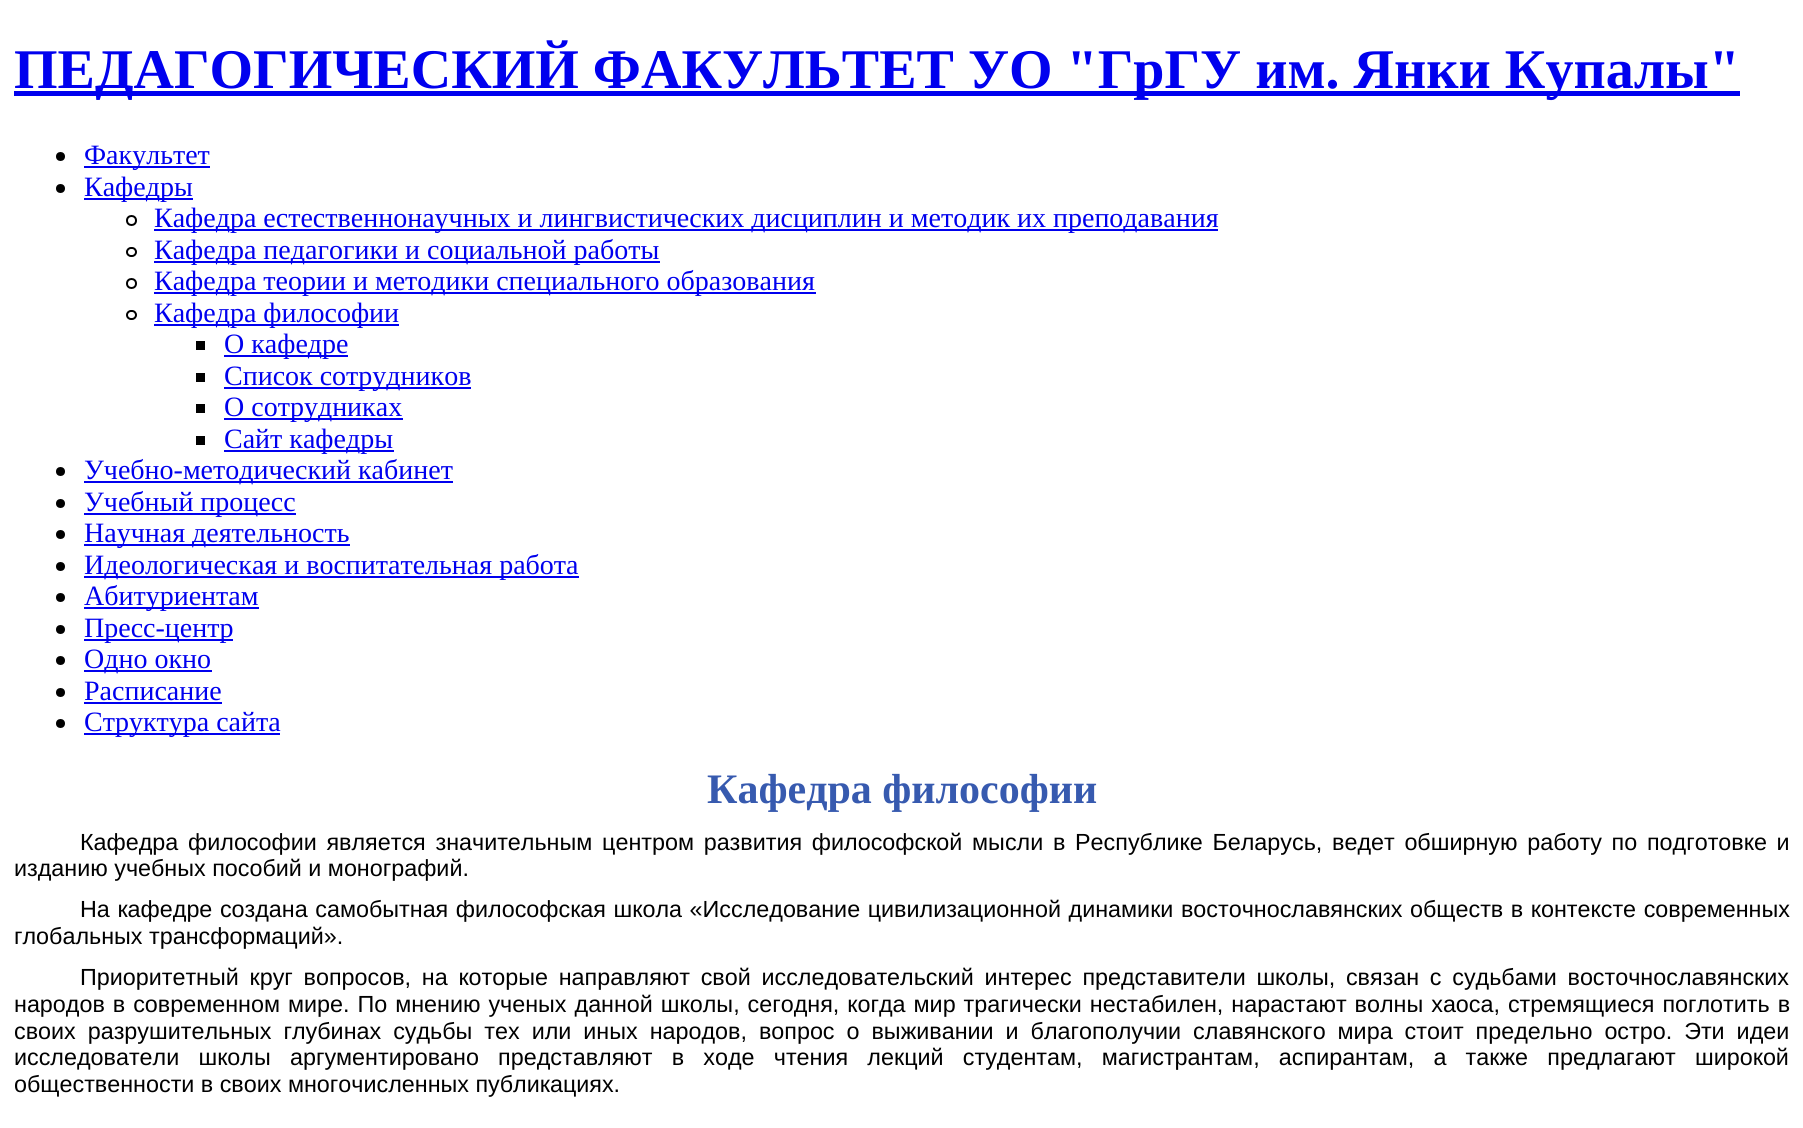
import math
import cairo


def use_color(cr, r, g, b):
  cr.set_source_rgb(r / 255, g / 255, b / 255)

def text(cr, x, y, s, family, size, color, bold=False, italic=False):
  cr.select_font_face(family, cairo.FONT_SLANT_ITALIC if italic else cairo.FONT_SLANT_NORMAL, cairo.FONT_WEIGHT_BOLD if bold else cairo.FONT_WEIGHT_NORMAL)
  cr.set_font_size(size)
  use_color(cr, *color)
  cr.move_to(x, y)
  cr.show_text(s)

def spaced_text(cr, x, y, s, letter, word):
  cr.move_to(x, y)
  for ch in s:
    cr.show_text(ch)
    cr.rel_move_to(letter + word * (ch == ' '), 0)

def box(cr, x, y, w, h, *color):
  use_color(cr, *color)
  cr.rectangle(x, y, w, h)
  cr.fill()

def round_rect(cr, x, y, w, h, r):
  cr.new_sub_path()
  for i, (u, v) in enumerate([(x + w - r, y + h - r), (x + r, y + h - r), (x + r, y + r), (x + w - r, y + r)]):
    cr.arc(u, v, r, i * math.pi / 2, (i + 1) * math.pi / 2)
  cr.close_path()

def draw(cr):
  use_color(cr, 255, 255, 255)
  cr.paint()
  box(cr, 14, 91, 1726, 5, 0, 0, 238)
  use_color(cr, 0, 0, 0)
  cr.arc(60.5, 156.5, 4.5, 0, 2 * math.pi)
  cr.fill()
  box(cr, 84, 166, 126, 2, 0, 0, 238)
  use_color(cr, 0, 0, 0)
  cr.arc(60.5, 188.5, 4.5, 0, 2 * math.pi)
  cr.fill()
  box(cr, 84, 198, 109, 2, 0, 0, 238)
  cr.arc(131.5, 220.5, 4.5, 0, 2 * math.pi)
  use_color(cr, 0, 0, 0)
  cr.stroke()
  box(cr, 154, 229, 1064, 2, 0, 0, 238)
  round_rect(cr, 127, 248, 9, 8, 4)
  use_color(cr, 0, 0, 0)
  cr.stroke()
  box(cr, 154, 261, 506, 2, 0, 0, 238)
  cr.arc(131.5, 283.5, 4.5, 0, 2 * math.pi)
  use_color(cr, 0, 0, 0)
  cr.stroke()
  box(cr, 154, 292, 662, 2, 0, 0, 238)
  round_rect(cr, 127, 311, 9, 8, 4)
  use_color(cr, 0, 0, 0)
  cr.stroke()
  box(cr, 154, 324, 245, 2, 0, 0, 238)
  box(cr, 196, 341, 9, 9, 0, 0, 0)
  box(cr, 224, 355, 124, 2, 0, 0, 238)
  box(cr, 196, 373, 9, 9, 0, 0, 0)
  box(cr, 224, 387, 247, 2, 0, 0, 238)
  box(cr, 196, 404, 9, 9, 0, 0, 0)
  box(cr, 224, 418, 179, 2, 0, 0, 238)
  box(cr, 196, 436, 9, 9, 0, 0, 0)
  box(cr, 224, 450, 170, 2, 0, 0, 238)
  use_color(cr, 0, 0, 0)
  cr.arc(60.5, 471.5, 4.5, 0, 2 * math.pi)
  cr.fill()
  box(cr, 84, 481, 369, 2, 0, 0, 238)
  use_color(cr, 0, 0, 0)
  cr.arc(60.5, 503.5, 4.5, 0, 2 * math.pi)
  cr.fill()
  box(cr, 84, 513, 212, 2, 0, 0, 238)
  use_color(cr, 0, 0, 0)
  cr.arc(60.5, 534.5, 4.5, 0, 2 * math.pi)
  cr.fill()
  box(cr, 84, 544, 266, 2, 0, 0, 238)
  use_color(cr, 0, 0, 0)
  cr.arc(60.5, 566.5, 4.5, 0, 2 * math.pi)
  cr.fill()
  box(cr, 84, 576, 495, 2, 0, 0, 238)
  use_color(cr, 0, 0, 0)
  cr.arc(60.5, 597.5, 4.5, 0, 2 * math.pi)
  cr.fill()
  box(cr, 84, 607, 175, 2, 0, 0, 238)
  use_color(cr, 0, 0, 0)
  cr.arc(60.5, 629.5, 4.5, 0, 2 * math.pi)
  cr.fill()
  box(cr, 84, 639, 149, 2, 0, 0, 238)
  use_color(cr, 0, 0, 0)
  cr.arc(60.5, 660.5, 4.5, 0, 2 * math.pi)
  cr.fill()
  box(cr, 84, 670, 128, 2, 0, 0, 238)
  use_color(cr, 0, 0, 0)
  cr.arc(60.5, 692.5, 4.5, 0, 2 * math.pi)
  cr.fill()
  box(cr, 84, 702, 138, 2, 0, 0, 238)
  use_color(cr, 0, 0, 0)
  cr.arc(60.5, 723.5, 4.5, 0, 2 * math.pi)
  cr.fill()
  box(cr, 84, 733, 196, 2, 0, 0, 238)
  text(cr, 14, 88, "ПЕДАГОГИЧЕСКИЙ ФАКУЛЬТЕТ УО \"ГрГУ им. Янки Купалы\"", "Liberation Serif", 56, (0, 0, 238), bold=True)
  text(cr, 84, 164, "Факультет", "Liberation Serif", 28, (0, 0, 238))
  text(cr, 84, 196, "Кафедры", "Liberation Serif", 28, (0, 0, 238))
  text(cr, 154, 227, "Кафедра естественнонаучных и лингвистических дисциплин и методик их преподавания", "Liberation Serif", 28, (0, 0, 238))
  text(cr, 154, 259, "Кафедра педагогики и социальной работы", "Liberation Serif", 28, (0, 0, 238))
  text(cr, 154, 290, "Кафедра теории и методики специального образования", "Liberation Serif", 28, (0, 0, 238))
  text(cr, 154, 322, "Кафедра философии", "Liberation Serif", 28, (0, 0, 238))
  text(cr, 224, 353, "О кафедре", "Liberation Serif", 28, (0, 0, 238))
  text(cr, 224, 385, "Список сотрудников", "Liberation Serif", 28, (0, 0, 238))
  text(cr, 224, 416, "О сотрудниках", "Liberation Serif", 28, (0, 0, 238))
  text(cr, 224, 448, "Сайт кафедры", "Liberation Serif", 28, (0, 0, 238))
  text(cr, 84, 479, "Учебно-методический кабинет", "Liberation Serif", 28, (0, 0, 238))
  text(cr, 84, 511, "Учебный процесс", "Liberation Serif", 28, (0, 0, 238))
  text(cr, 84, 542, "Научная деятельность", "Liberation Serif", 28, (0, 0, 238))
  text(cr, 84, 574, "Идеологическая и воспитательная работа", "Liberation Serif", 28, (0, 0, 238))
  text(cr, 84, 605, "Абитуриентам", "Liberation Serif", 28, (0, 0, 238))
  text(cr, 84, 637, "Пресс-центр", "Liberation Serif", 28, (0, 0, 238))
  text(cr, 84, 668, "Одно окно", "Liberation Serif", 28, (0, 0, 238))
  text(cr, 84, 700, "Расписание", "Liberation Serif", 28, (0, 0, 238))
  text(cr, 84, 731, "Структура сайта", "Liberation Serif", 28, (0, 0, 238))
  text(cr, 707, 803, "Кафедра философии", "Liberation Serif", 42, (55, 90, 175), bold=True)
  cr.select_font_face("Liberation Sans")
  cr.set_font_size(23.33)
  use_color(cr, 0, 0, 0)
  spaced_text(cr, 80, 850, "Кафедра философии является значительным центром развития философской мысли в Республике Беларусь, ведет обширную работу по подготовке и", 0, 3.25)
  text(cr, 14, 876, "изданию учебных пособий и монографий.", "Liberation Sans", 23.33, (0, 0, 0))
  spaced_text(cr, 80, 917, "На кафедре создана самобытная философская школа «Исследование цивилизационной динамики восточнославянских обществ в контексте современных", 0, 1.1)
  text(cr, 14, 944, "глобальных трансформаций».", "Liberation Sans", 23.33, (0, 0, 0))
  spaced_text(cr, 80, 985, "Приоритетный круг вопросов, на которые направляют свой исследовательский интерес представители школы, связан с судьбами восточнославянских", 0, 4.25)
  spaced_text(cr, 14, 1012, "народов в современном мире. По мнению ученых данной школы, сегодня, когда мир трагически нестабилен, нарастают волны хаоса, стремящиеся поглотить в", 0, 1.5)
  spaced_text(cr, 14, 1039, "своих разрушительных глубинах судьбы тех или иных народов, вопрос о выживании и благополучии славянского мира стоит предельно остро. Эти идеи", 0, 5.5)
  spaced_text(cr, 14, 1065, "исследователи школы аргументировано представляют в ходе чтения лекций студентам, магистрантам, аспирантам, а также предлагают широкой", 0, 12.75)
  text(cr, 14, 1092, "общественности в своих многочисленных публикациях.", "Liberation Sans", 23.33, (0, 0, 0))


surface = cairo.ImageSurface(cairo.FORMAT_RGB24, 1803, 1128)
cr = cairo.Context(surface)
options = cairo.FontOptions()
options.set_hint_metrics(cairo.HINT_METRICS_OFF)
options.set_hint_style(cairo.HINT_STYLE_NONE)
cr.set_font_options(options)
cr.set_miter_limit(4)
draw(cr)
surface.write_to_png("out.png")
